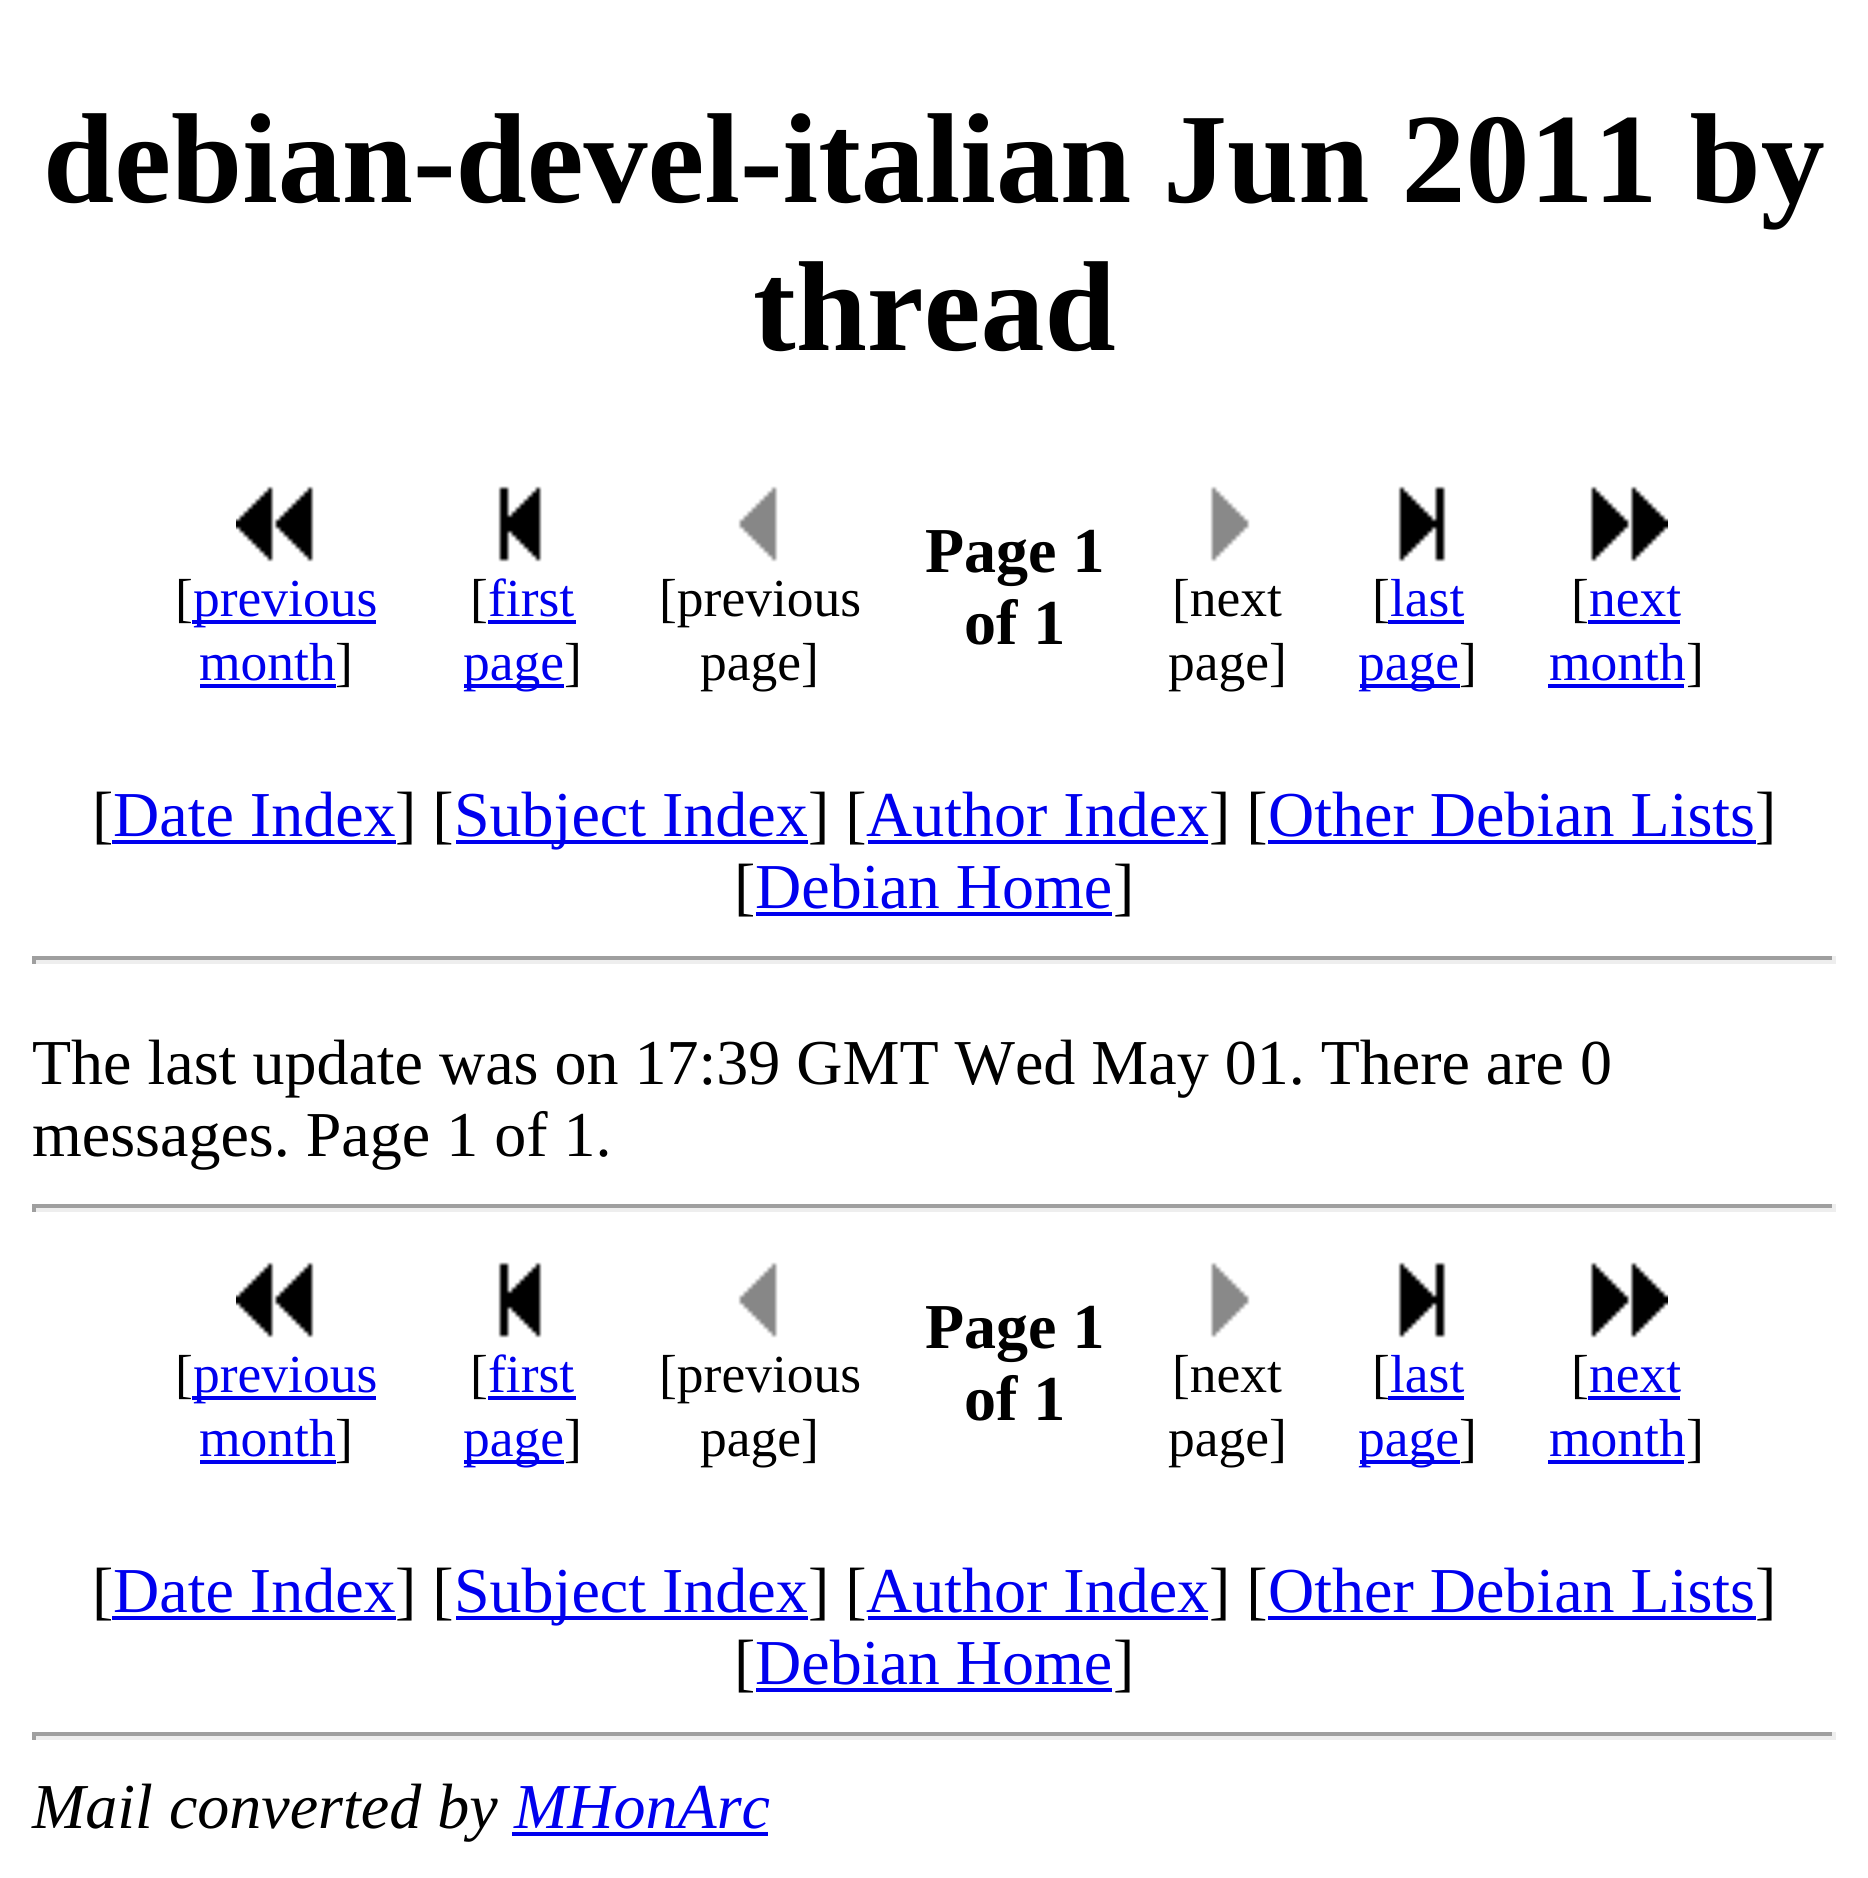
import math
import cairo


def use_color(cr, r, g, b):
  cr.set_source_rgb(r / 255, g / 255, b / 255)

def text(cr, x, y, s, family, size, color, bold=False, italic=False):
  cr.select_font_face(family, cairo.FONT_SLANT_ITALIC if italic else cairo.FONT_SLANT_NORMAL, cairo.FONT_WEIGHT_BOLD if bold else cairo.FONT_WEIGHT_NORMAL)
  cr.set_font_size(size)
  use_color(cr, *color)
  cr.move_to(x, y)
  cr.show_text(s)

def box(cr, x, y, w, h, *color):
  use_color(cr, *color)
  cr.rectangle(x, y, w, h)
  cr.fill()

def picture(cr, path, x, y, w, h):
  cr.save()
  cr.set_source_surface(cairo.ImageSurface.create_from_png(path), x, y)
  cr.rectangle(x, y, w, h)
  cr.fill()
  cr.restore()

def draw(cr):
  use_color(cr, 255, 255, 255)
  cr.paint()
  picture(cr, "img_01.png", 236, 486, 78, 76)
  box(cr, 192, 620, 184, 4, 0, 0, 238)
  box(cr, 200, 684, 136, 4, 0, 0, 238)
  picture(cr, "img_02.png", 498, 486, 44, 76)
  box(cr, 488, 620, 88, 4, 0, 0, 238)
  box(cr, 464, 684, 100, 4, 0, 0, 238)
  picture(cr, "img_03.png", 738, 486, 40, 76)
  picture(cr, "img_04.png", 1210, 486, 40, 76)
  picture(cr, "img_05.png", 1398, 486, 48, 76)
  box(cr, 1388, 620, 76, 4, 0, 0, 238)
  box(cr, 1360, 684, 100, 4, 0, 0, 238)
  picture(cr, "img_06.png", 1590, 486, 78, 76)
  box(cr, 1588, 620, 92, 4, 0, 0, 238)
  box(cr, 1548, 684, 136, 4, 0, 0, 238)
  box(cr, 112, 840, 284, 4, 0, 0, 238)
  box(cr, 456, 840, 352, 4, 0, 0, 238)
  box(cr, 868, 840, 340, 4, 0, 0, 238)
  box(cr, 1268, 840, 488, 4, 0, 0, 238)
  box(cr, 756, 912, 356, 4, 0, 0, 238)
  box(cr, 32, 956, 1804, 4, 159, 159, 159)
  box(cr, 1832, 956, 4, 8, 238, 238, 238)
  box(cr, 32, 960, 1804, 4, 238, 238, 238)
  box(cr, 32, 956, 4, 8, 159, 159, 159)
  box(cr, 32, 1204, 1804, 4, 159, 159, 159)
  box(cr, 1832, 1204, 4, 8, 238, 238, 238)
  box(cr, 32, 1208, 1804, 4, 238, 238, 238)
  box(cr, 32, 1204, 4, 8, 159, 159, 159)
  picture(cr, "img_01.png", 236, 1262, 78, 76)
  box(cr, 192, 1396, 184, 4, 0, 0, 238)
  box(cr, 200, 1460, 136, 4, 0, 0, 238)
  picture(cr, "img_02.png", 498, 1262, 44, 76)
  box(cr, 488, 1396, 88, 4, 0, 0, 238)
  box(cr, 464, 1460, 100, 4, 0, 0, 238)
  picture(cr, "img_03.png", 738, 1262, 40, 76)
  picture(cr, "img_04.png", 1210, 1262, 40, 76)
  picture(cr, "img_05.png", 1398, 1262, 48, 76)
  box(cr, 1388, 1396, 76, 4, 0, 0, 238)
  box(cr, 1360, 1460, 100, 4, 0, 0, 238)
  picture(cr, "img_06.png", 1590, 1262, 78, 76)
  box(cr, 1588, 1396, 92, 4, 0, 0, 238)
  box(cr, 1548, 1460, 136, 4, 0, 0, 238)
  box(cr, 112, 1616, 284, 4, 0, 0, 238)
  box(cr, 456, 1616, 352, 4, 0, 0, 238)
  box(cr, 868, 1616, 340, 4, 0, 0, 238)
  box(cr, 1268, 1616, 488, 4, 0, 0, 238)
  box(cr, 756, 1688, 356, 4, 0, 0, 238)
  box(cr, 32, 1732, 1804, 4, 159, 159, 159)
  box(cr, 1832, 1732, 4, 8, 238, 238, 238)
  box(cr, 32, 1736, 1804, 4, 238, 238, 238)
  box(cr, 32, 1732, 4, 8, 159, 159, 159)
  box(cr, 512, 1832, 256, 4, 0, 0, 238)
  text(cr, 43, 202, "debian-devel-italian Jun 2011 by", "Liberation Serif", 128, (0, 0, 0), bold=True)
  text(cr, 753, 350, "thread", "Liberation Serif", 128, (0, 0, 0), bold=True)
  text(cr, 175, 616, "[", "Liberation Serif", 53.5, (0, 0, 0))
  text(cr, 193, 616, "previous", "Liberation Serif", 53.5, (0, 0, 238))
  text(cr, 199, 680, "month", "Liberation Serif", 53.5, (0, 0, 238))
  text(cr, 335, 680, "]", "Liberation Serif", 53.5, (0, 0, 0))
  text(cr, 470, 616, "[", "Liberation Serif", 53.5, (0, 0, 0))
  text(cr, 488, 616, "first", "Liberation Serif", 53.5, (0, 0, 238))
  text(cr, 463, 680, "page", "Liberation Serif", 53.5, (0, 0, 238))
  text(cr, 564, 680, "]", "Liberation Serif", 53.5, (0, 0, 0))
  text(cr, 659, 616, "[previous", "Liberation Serif", 53.5, (0, 0, 0))
  text(cr, 700, 680, "page]", "Liberation Serif", 53.5, (0, 0, 0))
  text(cr, 925, 572, "Page 1", "Liberation Serif", 64, (0, 0, 0), bold=True)
  text(cr, 964, 644, "of 1", "Liberation Serif", 64, (0, 0, 0), bold=True)
  text(cr, 1172, 616, "[next", "Liberation Serif", 53.5, (0, 0, 0))
  text(cr, 1168, 680, "page]", "Liberation Serif", 53.5, (0, 0, 0))
  text(cr, 1372, 616, "[", "Liberation Serif", 53.5, (0, 0, 0))
  text(cr, 1390, 616, "last", "Liberation Serif", 53.5, (0, 0, 238))
  text(cr, 1358, 680, "page", "Liberation Serif", 53.5, (0, 0, 238))
  text(cr, 1459, 680, "]", "Liberation Serif", 53.5, (0, 0, 0))
  text(cr, 1571, 616, "[", "Liberation Serif", 53.5, (0, 0, 0))
  text(cr, 1589, 616, "next", "Liberation Serif", 53.5, (0, 0, 238))
  text(cr, 1549, 680, "month", "Liberation Serif", 53.5, (0, 0, 238))
  text(cr, 1686, 680, "]", "Liberation Serif", 53.5, (0, 0, 0))
  text(cr, 92, 836, "[", "Liberation Serif", 64, (0, 0, 0))
  text(cr, 113, 836, "Date Index", "Liberation Serif", 64, (0, 0, 238))
  text(cr, 395, 836, "] [", "Liberation Serif", 64, (0, 0, 0))
  text(cr, 454, 836, "Subject Index", "Liberation Serif", 64, (0, 0, 238))
  text(cr, 808, 836, "] [", "Liberation Serif", 64, (0, 0, 0))
  text(cr, 866, 836, "Author Index", "Liberation Serif", 64, (0, 0, 238))
  text(cr, 1209, 836, "] [", "Liberation Serif", 64, (0, 0, 0))
  text(cr, 1268, 836, "Other Debian Lists", "Liberation Serif", 64, (0, 0, 238))
  text(cr, 1755, 836, "]", "Liberation Serif", 64, (0, 0, 0))
  text(cr, 734, 908, "[", "Liberation Serif", 64, (0, 0, 0))
  text(cr, 755, 908, "Debian Home", "Liberation Serif", 64, (0, 0, 238))
  text(cr, 1113, 908, "]", "Liberation Serif", 64, (0, 0, 0))
  text(cr, 32, 1084, "The last update was on 17:39 GMT Wed May 01. There are 0", "Liberation Serif", 64, (0, 0, 0))
  text(cr, 32, 1156, "messages. Page 1 of 1.", "Liberation Serif", 64, (0, 0, 0))
  text(cr, 175, 1392, "[", "Liberation Serif", 53.5, (0, 0, 0))
  text(cr, 193, 1392, "previous", "Liberation Serif", 53.5, (0, 0, 238))
  text(cr, 199, 1456, "month", "Liberation Serif", 53.5, (0, 0, 238))
  text(cr, 335, 1456, "]", "Liberation Serif", 53.5, (0, 0, 0))
  text(cr, 470, 1392, "[", "Liberation Serif", 53.5, (0, 0, 0))
  text(cr, 488, 1392, "first", "Liberation Serif", 53.5, (0, 0, 238))
  text(cr, 463, 1456, "page", "Liberation Serif", 53.5, (0, 0, 238))
  text(cr, 564, 1456, "]", "Liberation Serif", 53.5, (0, 0, 0))
  text(cr, 659, 1392, "[previous", "Liberation Serif", 53.5, (0, 0, 0))
  text(cr, 700, 1456, "page]", "Liberation Serif", 53.5, (0, 0, 0))
  text(cr, 925, 1348, "Page 1", "Liberation Serif", 64, (0, 0, 0), bold=True)
  text(cr, 964, 1420, "of 1", "Liberation Serif", 64, (0, 0, 0), bold=True)
  text(cr, 1172, 1392, "[next", "Liberation Serif", 53.5, (0, 0, 0))
  text(cr, 1168, 1456, "page]", "Liberation Serif", 53.5, (0, 0, 0))
  text(cr, 1372, 1392, "[", "Liberation Serif", 53.5, (0, 0, 0))
  text(cr, 1390, 1392, "last", "Liberation Serif", 53.5, (0, 0, 238))
  text(cr, 1358, 1456, "page", "Liberation Serif", 53.5, (0, 0, 238))
  text(cr, 1459, 1456, "]", "Liberation Serif", 53.5, (0, 0, 0))
  text(cr, 1571, 1392, "[", "Liberation Serif", 53.5, (0, 0, 0))
  text(cr, 1589, 1392, "next", "Liberation Serif", 53.5, (0, 0, 238))
  text(cr, 1549, 1456, "month", "Liberation Serif", 53.5, (0, 0, 238))
  text(cr, 1686, 1456, "]", "Liberation Serif", 53.5, (0, 0, 0))
  text(cr, 92, 1612, "[", "Liberation Serif", 64, (0, 0, 0))
  text(cr, 113, 1612, "Date Index", "Liberation Serif", 64, (0, 0, 238))
  text(cr, 395, 1612, "] [", "Liberation Serif", 64, (0, 0, 0))
  text(cr, 454, 1612, "Subject Index", "Liberation Serif", 64, (0, 0, 238))
  text(cr, 808, 1612, "] [", "Liberation Serif", 64, (0, 0, 0))
  text(cr, 866, 1612, "Author Index", "Liberation Serif", 64, (0, 0, 238))
  text(cr, 1209, 1612, "] [", "Liberation Serif", 64, (0, 0, 0))
  text(cr, 1268, 1612, "Other Debian Lists", "Liberation Serif", 64, (0, 0, 238))
  text(cr, 1755, 1612, "]", "Liberation Serif", 64, (0, 0, 0))
  text(cr, 734, 1684, "[", "Liberation Serif", 64, (0, 0, 0))
  text(cr, 755, 1684, "Debian Home", "Liberation Serif", 64, (0, 0, 238))
  text(cr, 1113, 1684, "]", "Liberation Serif", 64, (0, 0, 0))
  text(cr, 32, 1828, "Mail converted by", "Liberation Serif", 64, (0, 0, 0), italic=True)
  text(cr, 514, 1828, "MHonArc", "Liberation Serif", 64, (0, 0, 238), italic=True)


surface = cairo.ImageSurface(cairo.FORMAT_RGB24, 1868, 1878)
cr = cairo.Context(surface)
options = cairo.FontOptions()
options.set_hint_metrics(cairo.HINT_METRICS_OFF)
options.set_hint_style(cairo.HINT_STYLE_NONE)
cr.set_font_options(options)
cr.set_miter_limit(4)
draw(cr)
surface.write_to_png("out.png")
